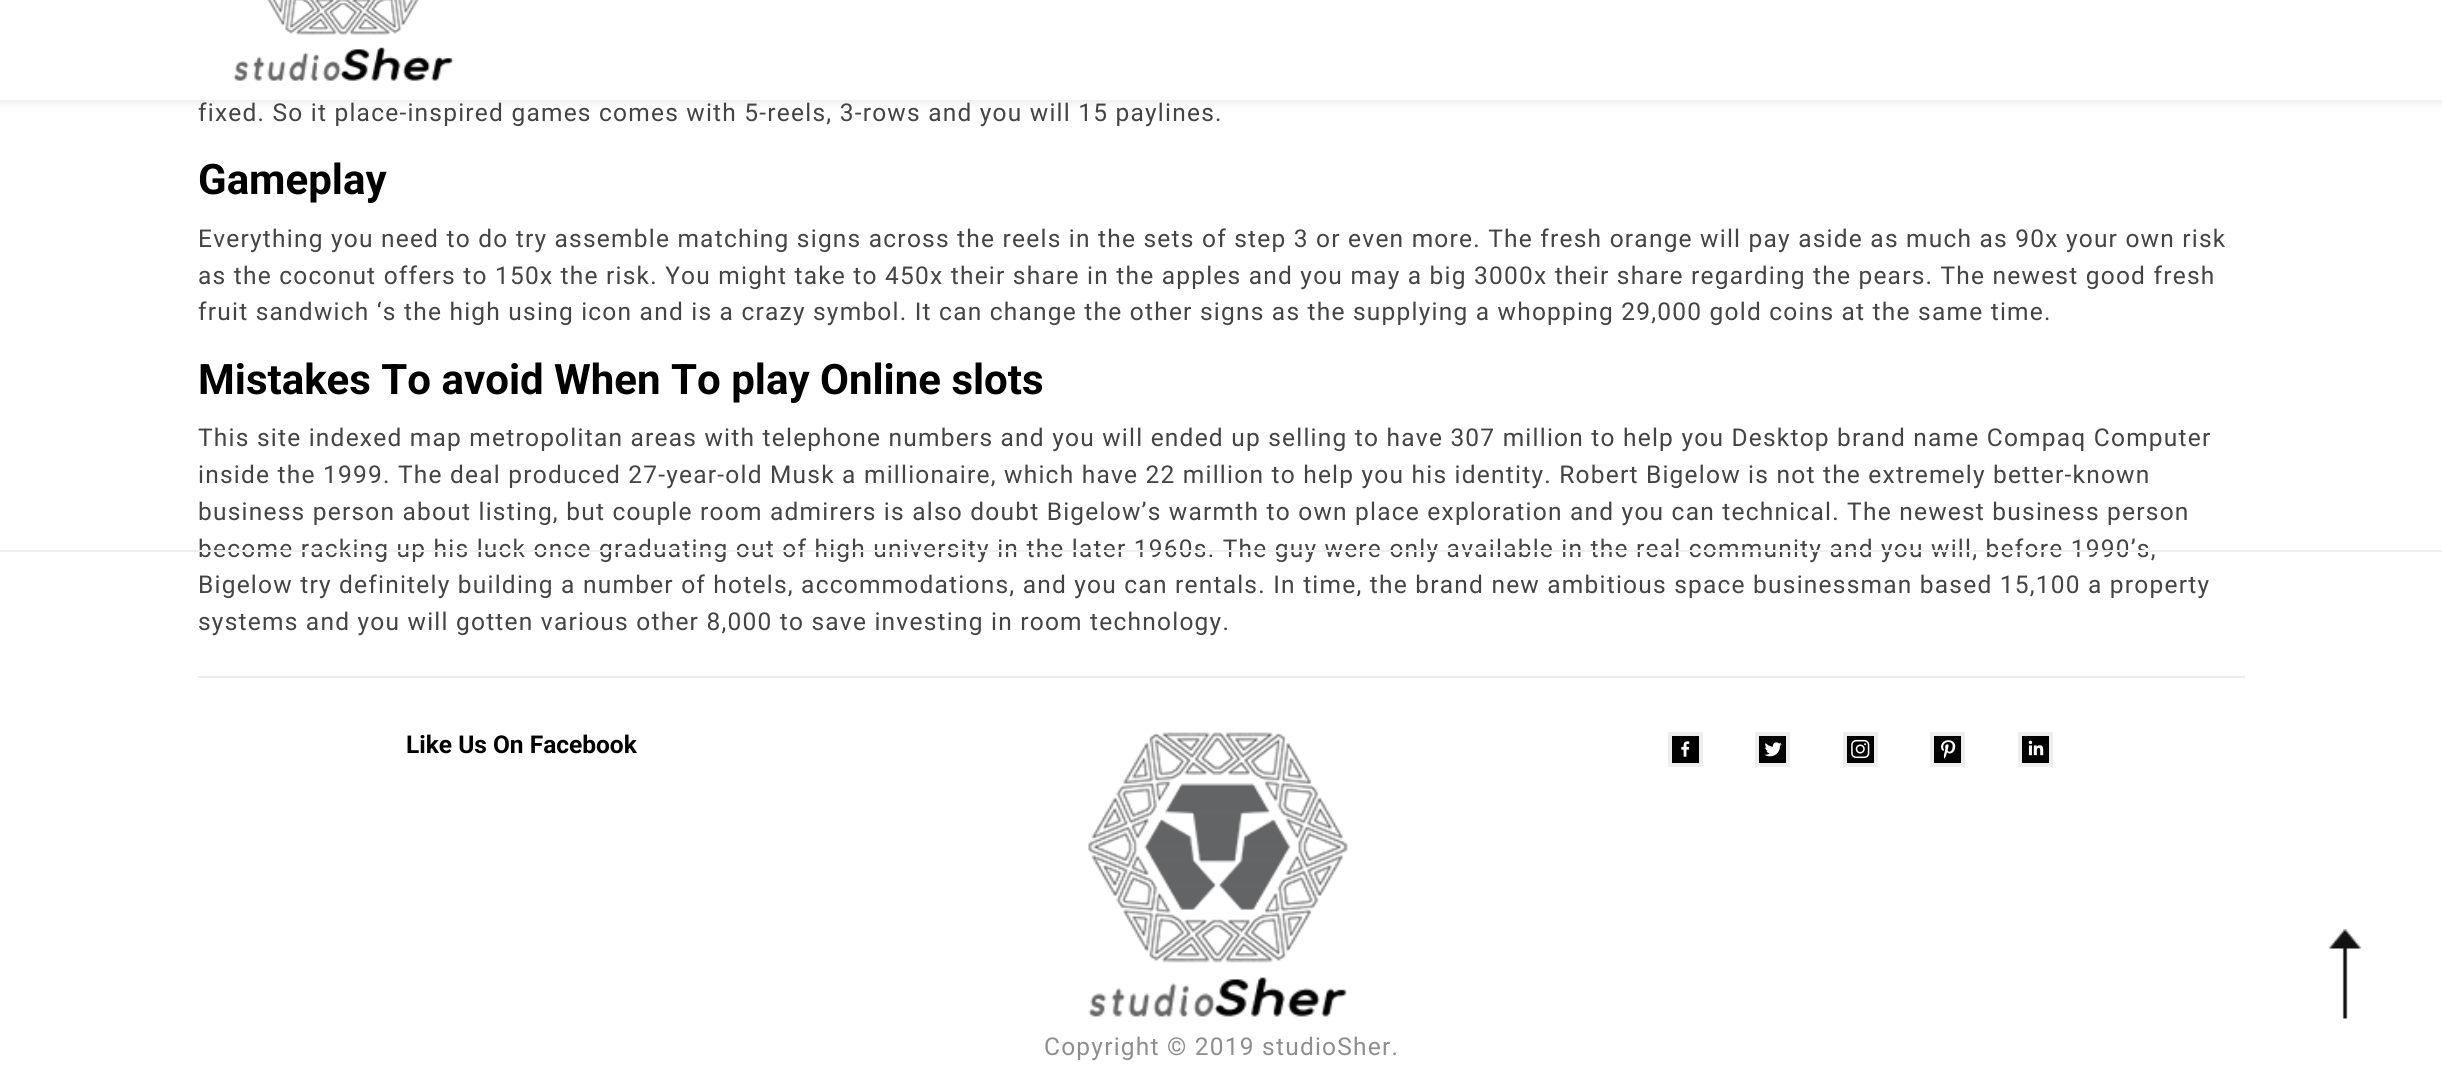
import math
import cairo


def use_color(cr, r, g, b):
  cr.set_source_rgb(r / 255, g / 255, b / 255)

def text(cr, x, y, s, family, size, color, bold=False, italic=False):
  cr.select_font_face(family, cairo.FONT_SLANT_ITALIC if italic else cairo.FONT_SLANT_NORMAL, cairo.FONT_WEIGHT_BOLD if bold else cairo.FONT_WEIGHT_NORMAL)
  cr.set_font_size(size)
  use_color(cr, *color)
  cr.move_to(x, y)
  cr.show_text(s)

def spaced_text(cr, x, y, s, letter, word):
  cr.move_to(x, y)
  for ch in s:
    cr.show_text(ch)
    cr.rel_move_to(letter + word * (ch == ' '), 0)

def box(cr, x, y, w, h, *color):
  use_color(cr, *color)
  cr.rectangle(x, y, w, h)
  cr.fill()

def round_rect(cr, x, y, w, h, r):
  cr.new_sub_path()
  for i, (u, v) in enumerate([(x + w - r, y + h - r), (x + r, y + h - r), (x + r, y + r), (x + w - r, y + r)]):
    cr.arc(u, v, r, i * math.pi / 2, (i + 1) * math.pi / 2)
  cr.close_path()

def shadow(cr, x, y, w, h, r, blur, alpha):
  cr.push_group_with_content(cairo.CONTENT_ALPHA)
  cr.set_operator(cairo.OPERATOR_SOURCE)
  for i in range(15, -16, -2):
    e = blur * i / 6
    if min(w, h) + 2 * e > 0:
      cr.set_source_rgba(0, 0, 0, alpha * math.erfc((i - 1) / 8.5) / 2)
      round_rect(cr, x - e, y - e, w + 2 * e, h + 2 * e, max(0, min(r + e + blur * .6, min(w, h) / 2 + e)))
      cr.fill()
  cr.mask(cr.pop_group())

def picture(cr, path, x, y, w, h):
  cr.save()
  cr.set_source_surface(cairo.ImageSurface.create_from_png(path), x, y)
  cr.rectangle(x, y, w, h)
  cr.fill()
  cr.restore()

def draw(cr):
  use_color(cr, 255, 255, 255)
  cr.paint()
  use_color(cr, 0, 0, 0)
  shadow(cr, 0, -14, 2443, 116, 0, 4.5, 0.1)
  box(cr, 0, 0, 2442, 100, 255, 255, 255)
  picture(cr, "img_01.png", 233, 0, 221, 81)
  box(cr, 198, 676, 2047, 2, 237, 237, 237)
  use_color(cr, 0, 0, 0)
  cr.rectangle(1670, 734, 31, 31)
  cr.fill_preserve()
  use_color(cr, 238, 238, 238)
  cr.set_line_width(4)
  cr.stroke()
  picture(cr, "img_02.png", 1681, 741, 9, 16)
  use_color(cr, 0, 0, 0)
  cr.rectangle(1757, 734, 31, 31)
  cr.fill_preserve()
  use_color(cr, 238, 238, 238)
  cr.stroke()
  picture(cr, "img_03.png", 1764, 742, 18, 15)
  use_color(cr, 0, 0, 0)
  cr.rectangle(1845, 734, 31, 31)
  cr.fill_preserve()
  use_color(cr, 238, 238, 238)
  cr.stroke()
  picture(cr, "img_04.png", 1851, 739, 19, 20)
  use_color(cr, 0, 0, 0)
  cr.rectangle(1932, 734, 31, 31)
  cr.fill_preserve()
  use_color(cr, 238, 238, 238)
  cr.stroke()
  picture(cr, "img_05.png", 1941, 740, 15, 19)
  use_color(cr, 0, 0, 0)
  cr.rectangle(2020, 734, 31, 31)
  cr.fill_preserve()
  use_color(cr, 238, 238, 238)
  cr.stroke()
  picture(cr, "img_06.png", 2028, 740, 16, 16)
  picture(cr, "img_07.png", 1088, 732, 260, 285)
  picture(cr, "img_08.png", 2328, 929, 34, 90)
  cr.select_font_face("Roboto")
  cr.set_font_size(24.5)
  use_color(cr, 68, 68, 68)
  spaced_text(cr, 198, 121, "fixed. So it place-inspired games comes with 5-reels, 3-rows and you will 15 paylines.", 1.22, 0)
  text(cr, 198, 194, "Gameplay", "Roboto", 42, (0, 0, 0), bold=True)
  cr.select_font_face("Roboto")
  cr.set_font_size(24.5)
  use_color(cr, 68, 68, 68)
  spaced_text(cr, 198, 247, "Everything you need to do try assemble matching signs across the reels in the sets of step 3 or even more. The fresh orange will pay aside as much as 90x your own risk", 1.22, 0)
  spaced_text(cr, 198, 284, "as the coconut offers to 150x the risk. You might take to 450x their share in the apples and you may a big 3000x their share regarding the pears. The newest good fresh", 1.22, 0)
  spaced_text(cr, 198, 320, "fruit sandwich ‘s the high using icon and is a crazy symbol. It can change the other signs as the supplying a whopping 29,000 gold coins at the same time.", 1.22, 0)
  text(cr, 198, 394, "Mistakes To avoid When To play Online slots", "Roboto", 42, (0, 0, 0), bold=True)
  cr.select_font_face("Roboto")
  cr.set_font_size(24.5)
  use_color(cr, 68, 68, 68)
  spaced_text(cr, 198, 446, "This site indexed map metropolitan areas with telephone numbers and you will ended up selling to have 307 million to help you Desktop brand name Compaq Computer", 1.22, 0)
  spaced_text(cr, 198, 483, "inside the 1999. The deal produced 27-year-old Musk a millionaire, which have 22 million to help you his identity. Robert Bigelow is not the extremely better-known", 1.22, 0)
  spaced_text(cr, 198, 520, "business person about listing, but couple room admirers is also doubt Bigelow’s warmth to own place exploration and you can technical. The newest business person", 1.22, 0)
  spaced_text(cr, 198, 557, "become racking up his luck once graduating out of high university in the later 1960s. The guy were only available in the real community and you will, before 1990’s,", 1.22, 0)
  spaced_text(cr, 198, 593, "Bigelow try definitely building a number of hotels, accommodations, and you can rentals. In time, the brand new ambitious space businessman based 15,100 a property", 1.22, 0)
  spaced_text(cr, 198, 630, "systems and you will gotten various other 8,000 to save investing in room technology.", 1.22, 0)
  box(cr, 0, 550, 2442, 2, 239, 239, 239)
  text(cr, 406, 753, "Like Us On Facebook", "Roboto", 24.5, (0, 0, 0), bold=True)
  cr.select_font_face("Roboto")
  use_color(cr, 142, 142, 142)
  spaced_text(cr, 1044, 1055, "Copyright © 2019 studioSher.", 1.22, 0)


surface = cairo.ImageSurface(cairo.FORMAT_RGB24, 2442, 1072)
cr = cairo.Context(surface)
options = cairo.FontOptions()
options.set_hint_metrics(cairo.HINT_METRICS_OFF)
options.set_hint_style(cairo.HINT_STYLE_NONE)
cr.set_font_options(options)
cr.set_miter_limit(4)
draw(cr)
surface.write_to_png("out.png")
